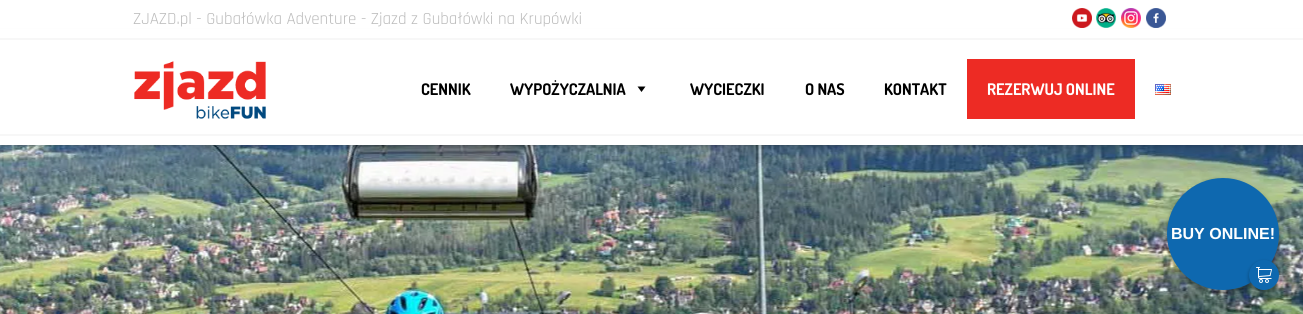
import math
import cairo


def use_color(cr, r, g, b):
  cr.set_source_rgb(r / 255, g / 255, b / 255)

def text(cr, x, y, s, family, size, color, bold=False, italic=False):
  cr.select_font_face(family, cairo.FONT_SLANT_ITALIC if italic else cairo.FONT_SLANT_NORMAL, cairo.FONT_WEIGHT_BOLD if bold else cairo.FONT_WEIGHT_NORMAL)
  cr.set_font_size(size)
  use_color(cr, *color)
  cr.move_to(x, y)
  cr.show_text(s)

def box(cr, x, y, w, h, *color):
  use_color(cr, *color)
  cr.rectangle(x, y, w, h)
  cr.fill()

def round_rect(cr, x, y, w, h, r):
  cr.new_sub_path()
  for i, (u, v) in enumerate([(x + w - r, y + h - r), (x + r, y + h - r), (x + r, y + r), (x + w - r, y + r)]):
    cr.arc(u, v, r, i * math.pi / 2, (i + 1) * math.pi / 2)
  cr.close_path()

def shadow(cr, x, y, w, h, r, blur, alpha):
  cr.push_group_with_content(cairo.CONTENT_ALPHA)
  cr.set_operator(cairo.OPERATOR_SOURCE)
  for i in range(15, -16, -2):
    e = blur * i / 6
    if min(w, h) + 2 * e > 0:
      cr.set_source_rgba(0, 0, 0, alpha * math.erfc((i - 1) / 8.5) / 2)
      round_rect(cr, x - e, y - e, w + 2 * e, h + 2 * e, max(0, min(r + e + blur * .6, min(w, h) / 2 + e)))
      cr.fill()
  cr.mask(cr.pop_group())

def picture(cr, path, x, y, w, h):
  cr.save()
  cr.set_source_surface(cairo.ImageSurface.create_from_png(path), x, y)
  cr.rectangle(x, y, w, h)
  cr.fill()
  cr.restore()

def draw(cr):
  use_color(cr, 255, 255, 255)
  cr.paint()
  picture(cr, "img_01.png", 0, 145, 1303, 169)
  use_color(cr, 0, 0, 0)
  shadow(cr, 0, 37, 1303, 111, 0, 3.5, 0.15)
  shadow(cr, 0, 33, 1303, 111, 0, 2, 0.35)
  picture(cr, "img_02.png", 1072, 8, 20, 20)
  picture(cr, "img_03.png", 1096, 8, 20, 20)
  picture(cr, "img_04.png", 1121, 8, 20, 20)
  picture(cr, "img_05.png", 1146, 8, 20, 20)
  box(cr, 0, 29, 1303, 116, 255, 255, 255)
  box(cr, 0, 38, 1303, 2, 247, 247, 247)
  picture(cr, "img_06.png", 134, 61, 132, 58)
  use_color(cr, 0, 0, 0)
  cr.new_path()
  cr.move_to(645.5, 86.5)
  cr.line_to(641.5, 92)
  cr.line_to(637.5, 86.5)
  cr.close_path()
  cr.fill()
  box(cr, 967, 59, 168, 60, 237, 43, 36)
  picture(cr, "img_07.png", 1155, 84, 16, 11)
  box(cr, 0, 134, 1303, 2, 247, 247, 247)
  use_color(cr, 0, 0, 0)
  shadow(cr, 1166, 179, 114, 114, 57, 1.5, 0.2)
  use_color(cr, 14, 104, 175)
  cr.arc(1223, 234, 56, 0, 2 * math.pi)
  cr.fill()
  use_color(cr, 0, 0, 0)
  shadow(cr, 1248, 261, 32, 32, 16, 1.5, 0.2)
  use_color(cr, 14, 104, 175)
  cr.arc(1264, 275, 15, 0, 2 * math.pi)
  cr.fill()
  picture(cr, "img_08.png", 1256, 267, 16, 16)
  text(cr, 133, 24, "ZJAZD.pl - Gubałówka Adventure - Zjazd z Gubałówki na Krupówki", "Rajdhani", 17, (187, 187, 187))
  text(cr, 421, 95, "CENNIK", "Dosis", 16, (0, 0, 0), bold=True)
  text(cr, 510, 95, "WYPOŻYCZALNIA", "Dosis", 16, (0, 0, 0), bold=True)
  text(cr, 690, 95, "WYCIECZKI", "Dosis", 16, (0, 0, 0), bold=True)
  text(cr, 805, 95, "O NAS", "Dosis", 16, (0, 0, 0), bold=True)
  text(cr, 884, 95, "KONTAKT", "Dosis", 16, (0, 0, 0), bold=True)
  text(cr, 987, 95, "REZERWUJ ONLINE", "Dosis", 16, (255, 255, 255), bold=True)
  text(cr, 1171, 239, "BUY ONLINE!", "Liberation Sans", 16, (255, 255, 255), bold=True)


surface = cairo.ImageSurface(cairo.FORMAT_RGB24, 1303, 314)
cr = cairo.Context(surface)
options = cairo.FontOptions()
options.set_hint_metrics(cairo.HINT_METRICS_OFF)
options.set_hint_style(cairo.HINT_STYLE_NONE)
cr.set_font_options(options)
cr.set_miter_limit(4)
draw(cr)
surface.write_to_png("out.png")
